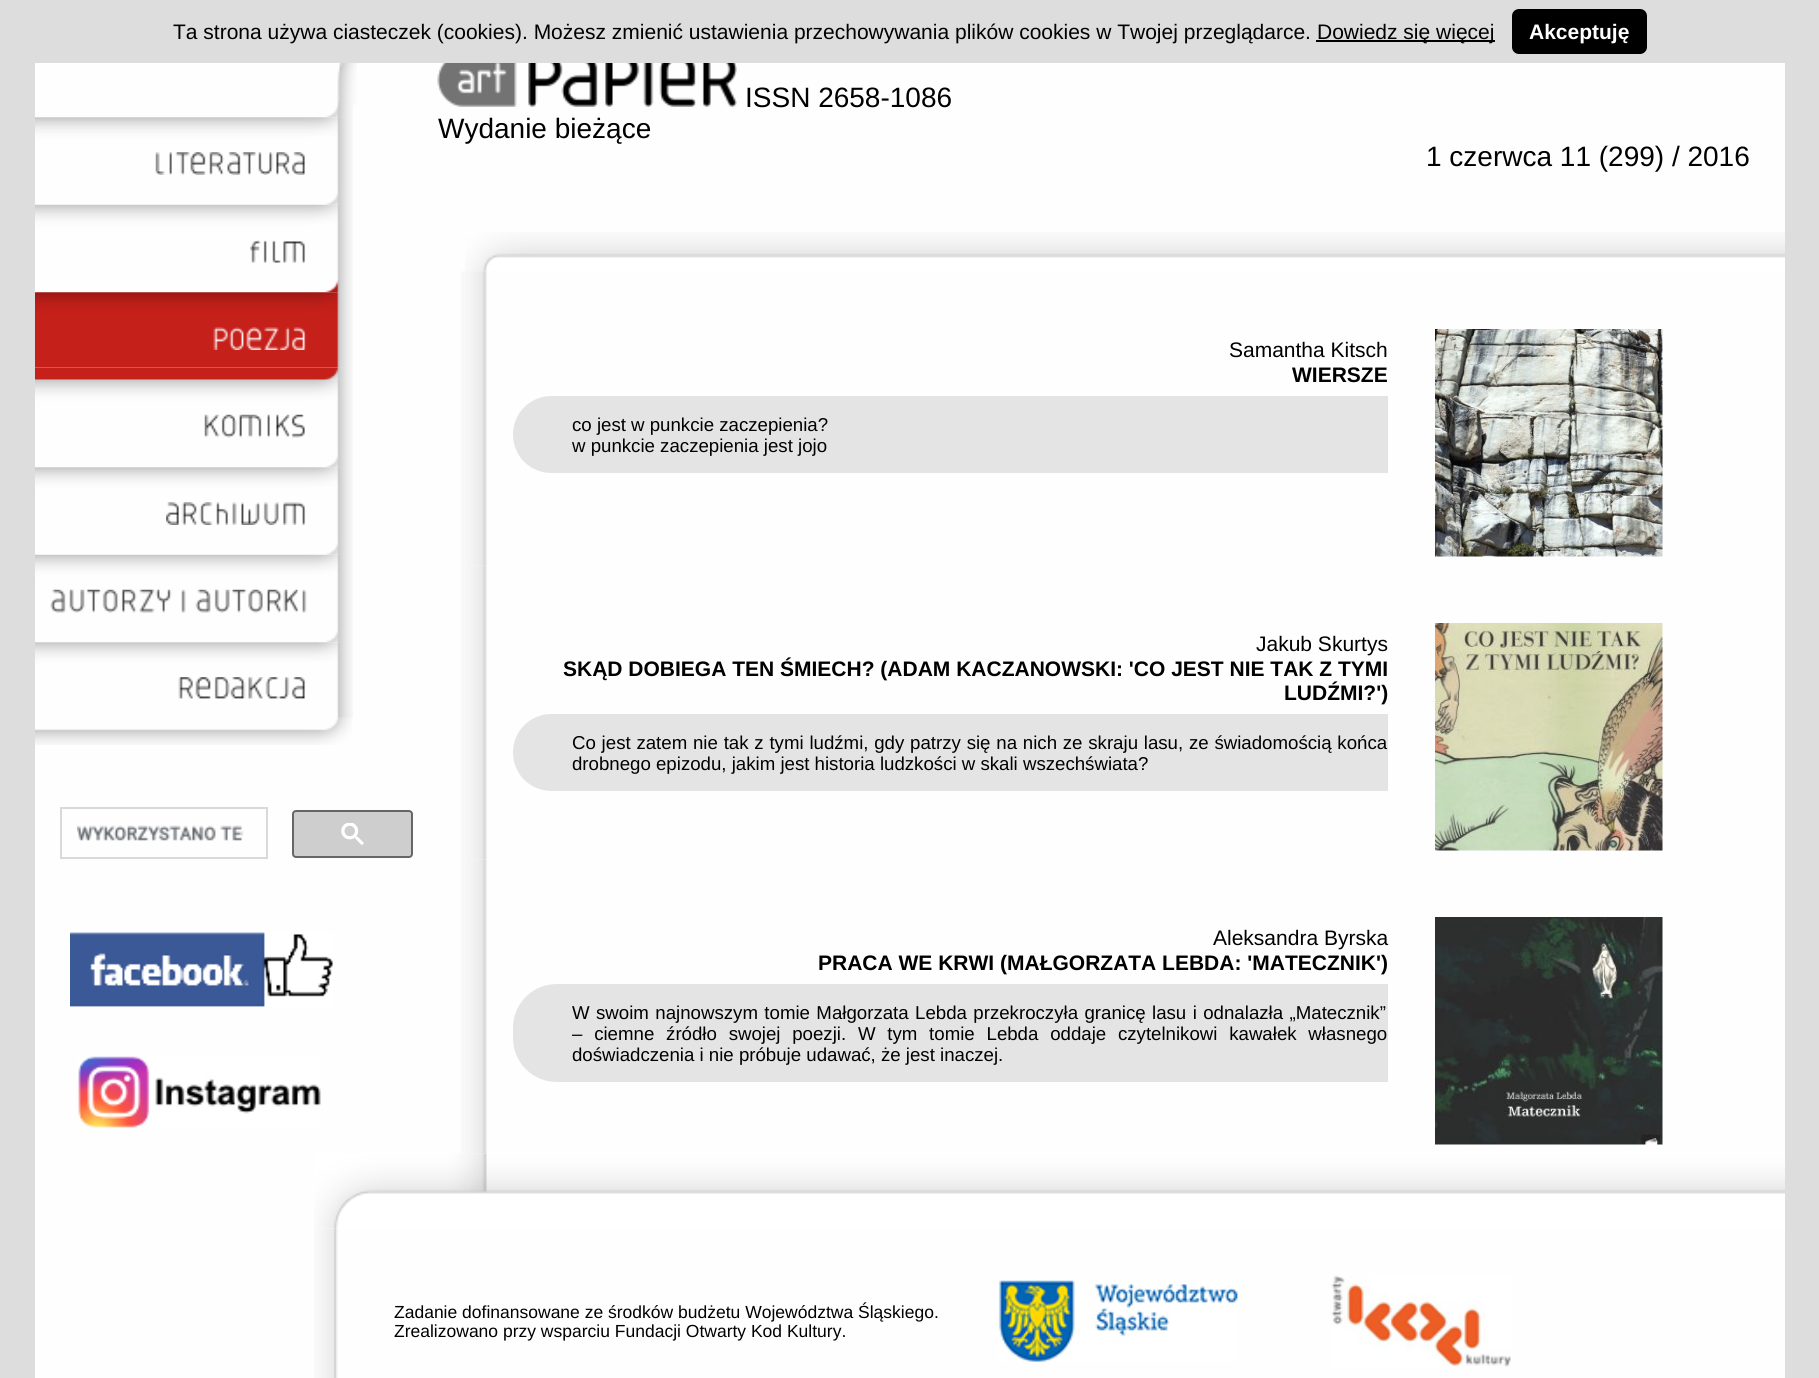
import math
import cairo


def use_color(cr, r, g, b):
  cr.set_source_rgb(r / 255, g / 255, b / 255)

def text(cr, x, y, s, family, size, color, bold=False, italic=False):
  cr.select_font_face(family, cairo.FONT_SLANT_ITALIC if italic else cairo.FONT_SLANT_NORMAL, cairo.FONT_WEIGHT_BOLD if bold else cairo.FONT_WEIGHT_NORMAL)
  cr.set_font_size(size)
  use_color(cr, *color)
  cr.move_to(x, y)
  cr.show_text(s)

def spaced_text(cr, x, y, s, letter, word):
  cr.move_to(x, y)
  for ch in s:
    cr.show_text(ch)
    cr.rel_move_to(letter + word * (ch == ' '), 0)

def box(cr, x, y, w, h, *color):
  use_color(cr, *color)
  cr.rectangle(x, y, w, h)
  cr.fill()

def round_rect(cr, x, y, w, h, r):
  cr.new_sub_path()
  for i, (u, v) in enumerate([(x + w - r, y + h - r), (x + r, y + h - r), (x + r, y + r), (x + w - r, y + r)]):
    cr.arc(u, v, r, i * math.pi / 2, (i + 1) * math.pi / 2)
  cr.close_path()

def picture(cr, path, x, y, w, h):
  cr.save()
  cr.set_source_surface(cairo.ImageSurface.create_from_png(path), x, y)
  cr.rectangle(x, y, w, h)
  cr.fill()
  cr.restore()

def draw(cr):
  use_color(cr, 221, 221, 221)
  cr.paint()
  box(cr, 1316, 40, 179, 2, 0, 0, 0)
  round_rect(cr, 1512, 9, 135, 45, 7)
  cr.fill()
  box(cr, 35, 63, 1750, 1315, 254, 254, 254)
  picture(cr, "img_01.png", 337, 63, 20, 42)
  picture(cr, "img_02.png", 326, 105, 27, 13)
  picture(cr, "img_03.png", 35, 117, 318, 76)
  picture(cr, "img_04.png", 155, 152, 150, 23)
  picture(cr, "img_05.png", 326, 192, 27, 13)
  picture(cr, "img_06.png", 35, 204, 318, 76)
  picture(cr, "img_07.png", 250, 240, 56, 23)
  picture(cr, "img_08.png", 325, 280, 28, 13)
  picture(cr, "img_09.png", 35, 292, 318, 76)
  picture(cr, "img_10.png", 213, 327, 93, 23)
  picture(cr, "img_11.png", 35, 367, 318, 13)
  picture(cr, "img_12.png", 35, 379, 318, 76)
  picture(cr, "img_13.png", 204, 414, 101, 24)
  picture(cr, "img_14.png", 326, 455, 27, 13)
  picture(cr, "img_03.png", 35, 467, 318, 76)
  picture(cr, "img_15.png", 166, 502, 140, 23)
  picture(cr, "img_05.png", 326, 542, 27, 13)
  picture(cr, "img_06.png", 35, 554, 318, 76)
  picture(cr, "img_16.png", 50, 589, 257, 24)
  picture(cr, "img_14.png", 326, 630, 27, 13)
  picture(cr, "img_03.png", 35, 642, 318, 76)
  picture(cr, "img_17.png", 178, 677, 127, 22)
  picture(cr, "img_18.png", 35, 717, 317, 28)
  cr.rectangle(61, 808, 206, 50)
  use_color(cr, 217, 217, 217)
  cr.stroke()
  picture(cr, "img_19.png", 77, 825, 167, 16)
  use_color(cr, 206, 206, 206)
  round_rect(cr, 293, 811, 119, 46, 3)
  cr.fill_preserve()
  use_color(cr, 102, 102, 102)
  cr.stroke()
  picture(cr, "img_20.png", 341, 823, 23, 22)
  picture(cr, "img_21.png", 70, 932, 263, 75)
  picture(cr, "img_22.png", 78, 1056, 243, 72)
  picture(cr, "img_23.png", 437, 63, 300, 44)
  picture(cr, "img_24.png", 465, 232, 1320, 40)
  picture(cr, "img_25.png", 461, 271, 26, 295)
  use_color(cr, 228, 228, 228)
  cr.new_path()
  cr.move_to(551.5, 396)
  cr.line_to(1388, 396)
  cr.line_to(1388, 473)
  cr.line_to(551.5, 473)
  cr.curve_to(530, 473, 513, 456, 513, 434.5)
  cr.curve_to(513, 413, 530, 396, 551.5, 396)
  cr.close_path()
  cr.fill()
  picture(cr, "img_26.png", 1435, 329, 228, 228)
  picture(cr, "img_27.png", 461, 565, 26, 295)
  cr.new_path()
  cr.move_to(551.5, 714)
  cr.line_to(1388, 714)
  cr.line_to(1388, 791)
  cr.line_to(551.5, 791)
  cr.curve_to(530, 791, 513, 774, 513, 752.5)
  cr.curve_to(513, 731, 530, 714, 551.5, 714)
  cr.close_path()
  cr.fill()
  picture(cr, "img_28.png", 1435, 623, 228, 228)
  picture(cr, "img_27.png", 461, 859, 26, 295)
  cr.new_path()
  cr.move_to(557, 984)
  cr.line_to(1388, 984)
  cr.line_to(1388, 1082)
  cr.line_to(557, 1082)
  cr.curve_to(532.5, 1082, 513, 1062.5, 513, 1038)
  cr.line_to(513, 1028)
  cr.curve_to(513, 1003.5, 532.5, 984, 557, 984)
  cr.close_path()
  cr.fill()
  picture(cr, "img_29.png", 1435, 917, 228, 228)
  picture(cr, "img_30.png", 314, 1153, 1471, 76)
  picture(cr, "img_31.png", 314, 1228, 24, 150)
  picture(cr, "img_32.png", 998, 1280, 240, 82)
  picture(cr, "img_33.png", 1331, 1275, 180, 92)
  text(cr, 173, 39, "Ta strona używa ciasteczek (cookies). Możesz zmienić ustawienia przechowywania plików cookies w Twojej przeglądarce.", "Liberation Sans", 21, (0, 0, 0))
  text(cr, 1317, 39, "Dowiedz się więcej", "Liberation Sans", 21, (0, 0, 0))
  text(cr, 1529, 39, "Akceptuję", "Liberation Sans", 21, (255, 255, 255), bold=True)
  text(cr, 745, 107, "ISSN 2658-1086", "Liberation Sans", 28, (0, 0, 0))
  text(cr, 438, 138, "Wydanie bieżące", "Liberation Sans", 28, (0, 0, 0))
  text(cr, 1426, 166, "1 czerwca 11 (299) / 2016", "Liberation Sans", 28, (0, 0, 0))
  text(cr, 1229, 357, "Samantha Kitsch", "Liberation Sans", 21, (0, 0, 0))
  text(cr, 1292, 382, "WIERSZE", "Liberation Sans", 21, (0, 0, 0), bold=True)
  text(cr, 572, 431, "co jest w punkcie zaczepienia?", "Liberation Sans", 18.65, (0, 0, 0))
  text(cr, 572, 452, "w punkcie zaczepienia jest jojo", "Liberation Sans", 18.65, (0, 0, 0))
  text(cr, 1256, 651, "Jakub Skurtys", "Liberation Sans", 21, (0, 0, 0))
  text(cr, 563, 676, "SKĄD DOBIEGA TEN ŚMIECH? (ADAM KACZANOWSKI: 'CO JEST NIE TAK Z TYMI", "Liberation Sans", 21, (0, 0, 0), bold=True)
  text(cr, 1284, 700, "LUDŹMI?')", "Liberation Sans", 21, (0, 0, 0), bold=True)
  cr.select_font_face("Liberation Sans")
  cr.set_font_size(18.65)
  spaced_text(cr, 572, 749, "Co jest zatem nie tak z tymi ludźmi, gdy patrzy się na nich ze skraju lasu, ze świadomością końca", 0, 0.6)
  text(cr, 572, 770, "drobnego epizodu, jakim jest historia ludzkości w skali wszechświata?", "Liberation Sans", 18.65, (0, 0, 0))
  text(cr, 1213, 945, "Aleksandra Byrska", "Liberation Sans", 21, (0, 0, 0))
  text(cr, 818, 970, "PRACA WE KRWI (MAŁGORZATA LEBDA: 'MATECZNIK')", "Liberation Sans", 21, (0, 0, 0), bold=True)
  cr.select_font_face("Liberation Sans")
  cr.set_font_size(18.65)
  spaced_text(cr, 572, 1019, "W swoim najnowszym tomie Małgorzata Lebda przekroczyła granicę lasu i odnalazła „Matecznik”", 0, 1.25)
  spaced_text(cr, 572, 1040, "– ciemne źródło swojej poezji. W tym tomie Lebda oddaje czytelnikowi kawałek własnego", 0, 6.6)
  text(cr, 572, 1061, "doświadczenia i nie próbuje udawać, że jest inaczej.", "Liberation Sans", 18.65, (0, 0, 0))
  text(cr, 394, 1318, "Zadanie dofinansowane ze środków budżetu Województwa Śląskiego.", "Liberation Sans", 17.5, (0, 0, 0))
  text(cr, 394, 1337, "Zrealizowano przy wsparciu Fundacji Otwarty Kod Kultury.", "Liberation Sans", 17.5, (0, 0, 0))


surface = cairo.ImageSurface(cairo.FORMAT_RGB24, 1819, 1378)
cr = cairo.Context(surface)
options = cairo.FontOptions()
options.set_hint_metrics(cairo.HINT_METRICS_OFF)
options.set_hint_style(cairo.HINT_STYLE_NONE)
cr.set_font_options(options)
cr.set_miter_limit(4)
draw(cr)
surface.write_to_png("out.png")
